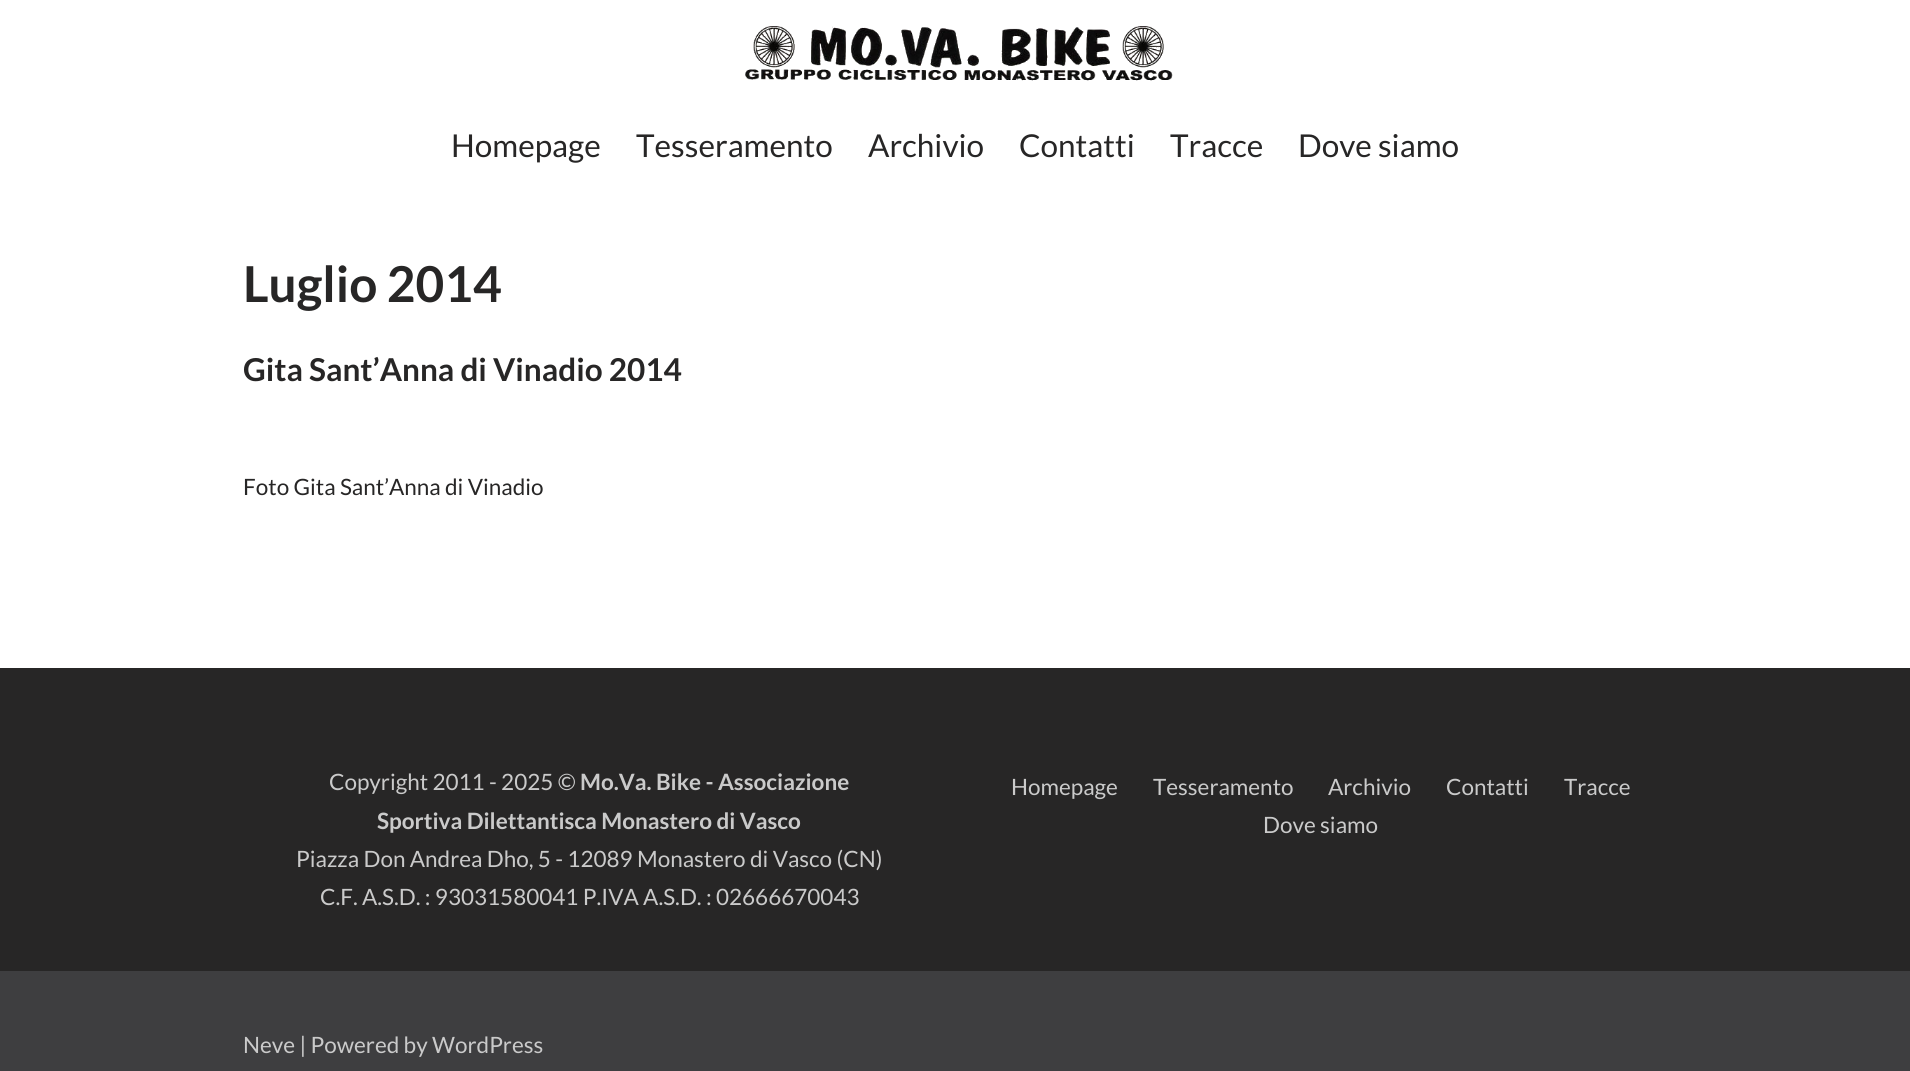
import math
import cairo


def use_color(cr, r, g, b):
  cr.set_source_rgb(r / 255, g / 255, b / 255)

def text(cr, x, y, s, family, size, color, bold=False, italic=False):
  cr.select_font_face(family, cairo.FONT_SLANT_ITALIC if italic else cairo.FONT_SLANT_NORMAL, cairo.FONT_WEIGHT_BOLD if bold else cairo.FONT_WEIGHT_NORMAL)
  cr.set_font_size(size)
  use_color(cr, *color)
  cr.move_to(x, y)
  cr.show_text(s)

def box(cr, x, y, w, h, *color):
  use_color(cr, *color)
  cr.rectangle(x, y, w, h)
  cr.fill()

def picture(cr, path, x, y, w, h):
  cr.save()
  cr.set_source_surface(cairo.ImageSurface.create_from_png(path), x, y)
  cr.rectangle(x, y, w, h)
  cr.fill()
  cr.restore()

def draw(cr):
  use_color(cr, 255, 255, 255)
  cr.paint()
  picture(cr, "img_01.png", 745, 26, 428, 55)
  box(cr, 0, 668, 1910, 303, 39, 38, 38)
  box(cr, 0, 971, 1910, 100, 62, 62, 64)
  text(cr, 451, 157, "Homepage", "Lato", 31.5, (39, 38, 38))
  text(cr, 636, 157, "Tesseramento", "Lato", 31.5, (39, 38, 38))
  text(cr, 868, 157, "Archivio", "Lato", 31.5, (39, 38, 38))
  text(cr, 1019, 157, "Contatti", "Lato", 31.5, (39, 38, 38))
  text(cr, 1170, 157, "Tracce", "Lato", 31.5, (39, 38, 38))
  text(cr, 1298, 157, "Dove siamo", "Lato", 31.5, (39, 38, 38))
  text(cr, 243, 302, "Luglio 2014", "Lato", 49.5, (39, 38, 38), bold=True)
  text(cr, 243, 381, "Gita Sant’Anna di Vinadio 2014", "Lato", 31.5, (39, 38, 38), bold=True)
  text(cr, 243, 495, "Foto Gita Sant’Anna di Vinadio", "Lato", 22.5, (39, 38, 38))
  text(cr, 329, 790, "Copyright 2011 - 2025 ©", "Lato", 22.5, (202, 202, 202))
  text(cr, 580, 790, "Mo.Va. Bike - Associazione", "Lato", 22.5, (202, 202, 202), bold=True)
  text(cr, 377, 829, "Sportiva Dilettantisca Monastero di Vasco", "Lato", 22.5, (202, 202, 202), bold=True)
  text(cr, 296, 867, "Piazza Don Andrea Dho, 5 - 12089 Monastero di Vasco (CN)", "Lato", 22.5, (202, 202, 202))
  text(cr, 320, 905, "C.F. A.S.D. : 93031580041 P.IVA A.S.D. : 02666670043", "Lato", 22.5, (202, 202, 202))
  text(cr, 1011, 795, "Homepage", "Lato", 22.5, (202, 202, 202))
  text(cr, 1153, 795, "Tesseramento", "Lato", 22.5, (202, 202, 202))
  text(cr, 1328, 795, "Archivio", "Lato", 22.5, (202, 202, 202))
  text(cr, 1446, 795, "Contatti", "Lato", 22.5, (202, 202, 202))
  text(cr, 1564, 795, "Tracce", "Lato", 22.5, (202, 202, 202))
  text(cr, 1263, 833, "Dove siamo", "Lato", 22.5, (202, 202, 202))
  text(cr, 243, 1053, "Neve | Powered by WordPress", "Lato", 22.5, (202, 202, 202))


surface = cairo.ImageSurface(cairo.FORMAT_RGB24, 1910, 1071)
cr = cairo.Context(surface)
options = cairo.FontOptions()
options.set_hint_metrics(cairo.HINT_METRICS_OFF)
options.set_hint_style(cairo.HINT_STYLE_NONE)
cr.set_font_options(options)
cr.set_miter_limit(4)
draw(cr)
surface.write_to_png("out.png")
